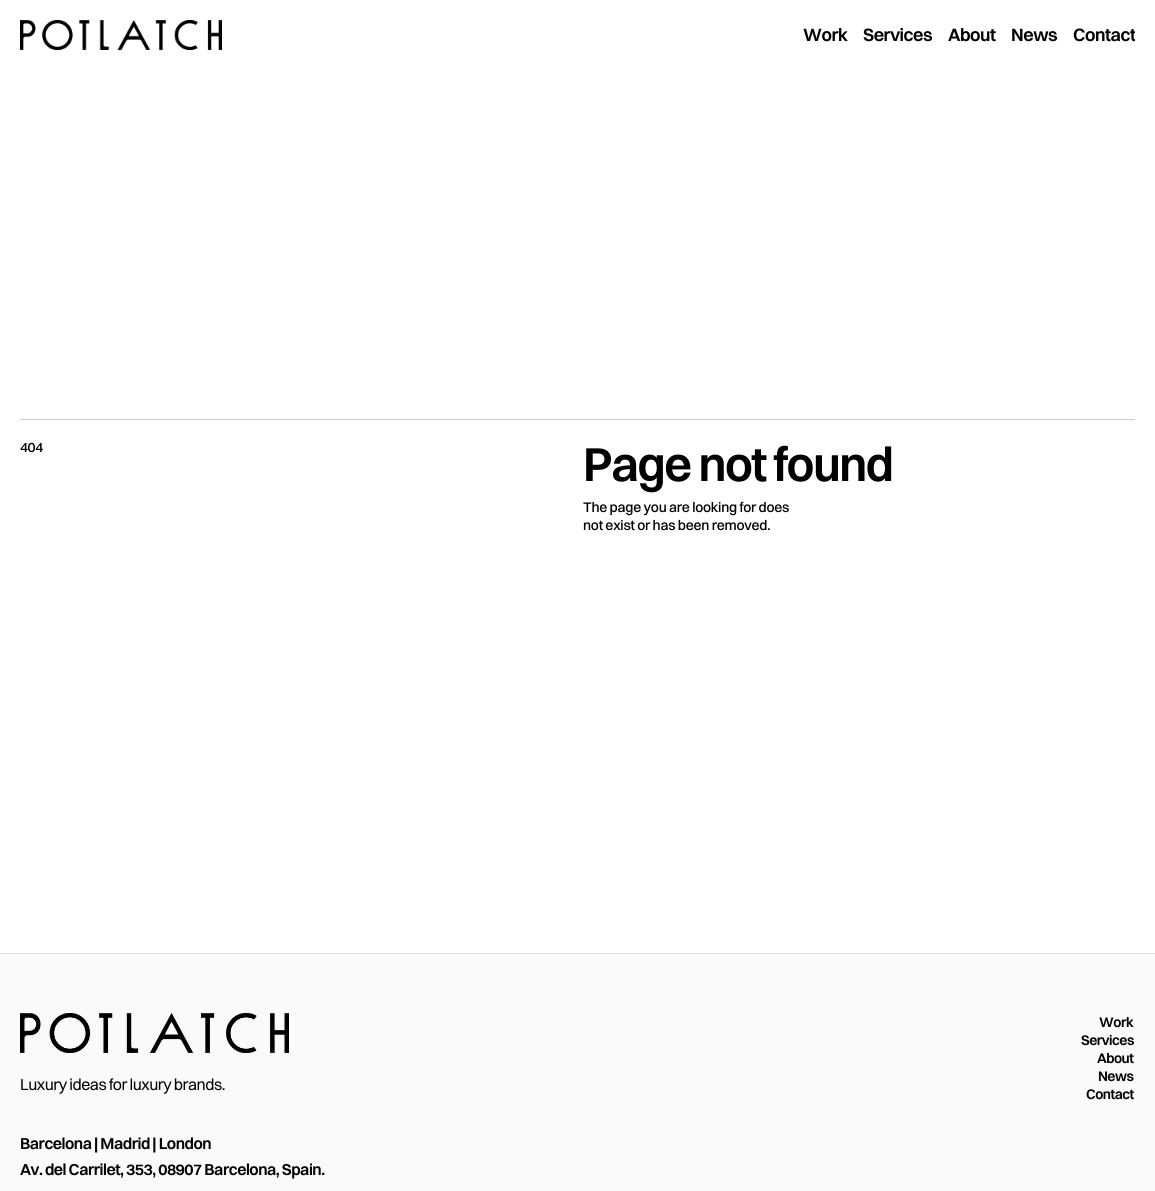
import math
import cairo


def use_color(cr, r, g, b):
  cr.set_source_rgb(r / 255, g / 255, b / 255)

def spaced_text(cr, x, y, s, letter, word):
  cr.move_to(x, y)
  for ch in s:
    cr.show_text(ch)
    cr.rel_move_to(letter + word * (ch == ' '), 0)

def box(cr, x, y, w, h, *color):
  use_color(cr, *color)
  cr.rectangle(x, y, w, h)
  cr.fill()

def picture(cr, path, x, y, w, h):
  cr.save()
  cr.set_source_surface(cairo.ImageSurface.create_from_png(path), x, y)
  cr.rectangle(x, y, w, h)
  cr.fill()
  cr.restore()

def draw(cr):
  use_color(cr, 255, 255, 255)
  cr.paint()
  picture(cr, "img_01.png", 20, 20, 202, 30)
  box(cr, 20, 419, 1115, 1, 204, 204, 204)
  box(cr, 0, 954, 1155, 237, 250, 250, 250)
  box(cr, 0, 953, 1155, 1, 225, 225, 225)
  picture(cr, "img_02.png", 20, 1013, 269, 40)
  cr.select_font_face("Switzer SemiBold")
  cr.set_font_size(18)
  use_color(cr, 0, 0, 0)
  spaced_text(cr, 803, 41, "Work", -0.5, 0)
  spaced_text(cr, 863, 41, "Services", -0.5, 0)
  spaced_text(cr, 948, 41, "About", -0.5, 0)
  spaced_text(cr, 1011, 41, "News", -0.5, 0)
  cr.save()
  cr.rectangle(588, 26, 547, 18)
  cr.clip()
  spaced_text(cr, 1073, 41, "Contact", -0.5, 0)
  cr.restore()
  cr.select_font_face("Switzer Medium")
  cr.set_font_size(14)
  spaced_text(cr, 20, 452, "404", -0.5, 0)
  cr.select_font_face("Switzer SemiBold")
  cr.set_font_size(48)
  spaced_text(cr, 583, 481, "Page not found", -1.5, 0)
  cr.select_font_face("Switzer Medium")
  cr.set_font_size(14)
  spaced_text(cr, 583, 512, "The page you are looking for does", -0.25, 0)
  spaced_text(cr, 583, 530, "not exist or has been removed.", -0.25, 0)
  cr.select_font_face("Switzer SemiBold")
  spaced_text(cr, 1099, 1027, "Work", -0.5, 0)
  spaced_text(cr, 1081, 1045, "Services", -0.5, 0)
  spaced_text(cr, 1097, 1063, "About", -0.5, 0)
  spaced_text(cr, 1098, 1081, "News", -0.5, 0)
  spaced_text(cr, 1086, 1099, "Contact", -0.5, 0)
  cr.select_font_face("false")
  cr.set_font_size(16)
  spaced_text(cr, 20, 1090, "Luxury ideas for luxury brands.", -0.5, 0)
  cr.select_font_face("Switzer SemiBold")
  spaced_text(cr, 20, 1149, "Barcelona | Madrid | London", -0.5, 0)
  spaced_text(cr, 20, 1175, "Av. del Carrilet, 353, 08907 Barcelona, Spain.", -0.5, 0)


surface = cairo.ImageSurface(cairo.FORMAT_RGB24, 1155, 1191)
cr = cairo.Context(surface)
options = cairo.FontOptions()
options.set_hint_metrics(cairo.HINT_METRICS_OFF)
options.set_hint_style(cairo.HINT_STYLE_NONE)
cr.set_font_options(options)
cr.set_miter_limit(4)
draw(cr)
surface.write_to_png("out.png")
